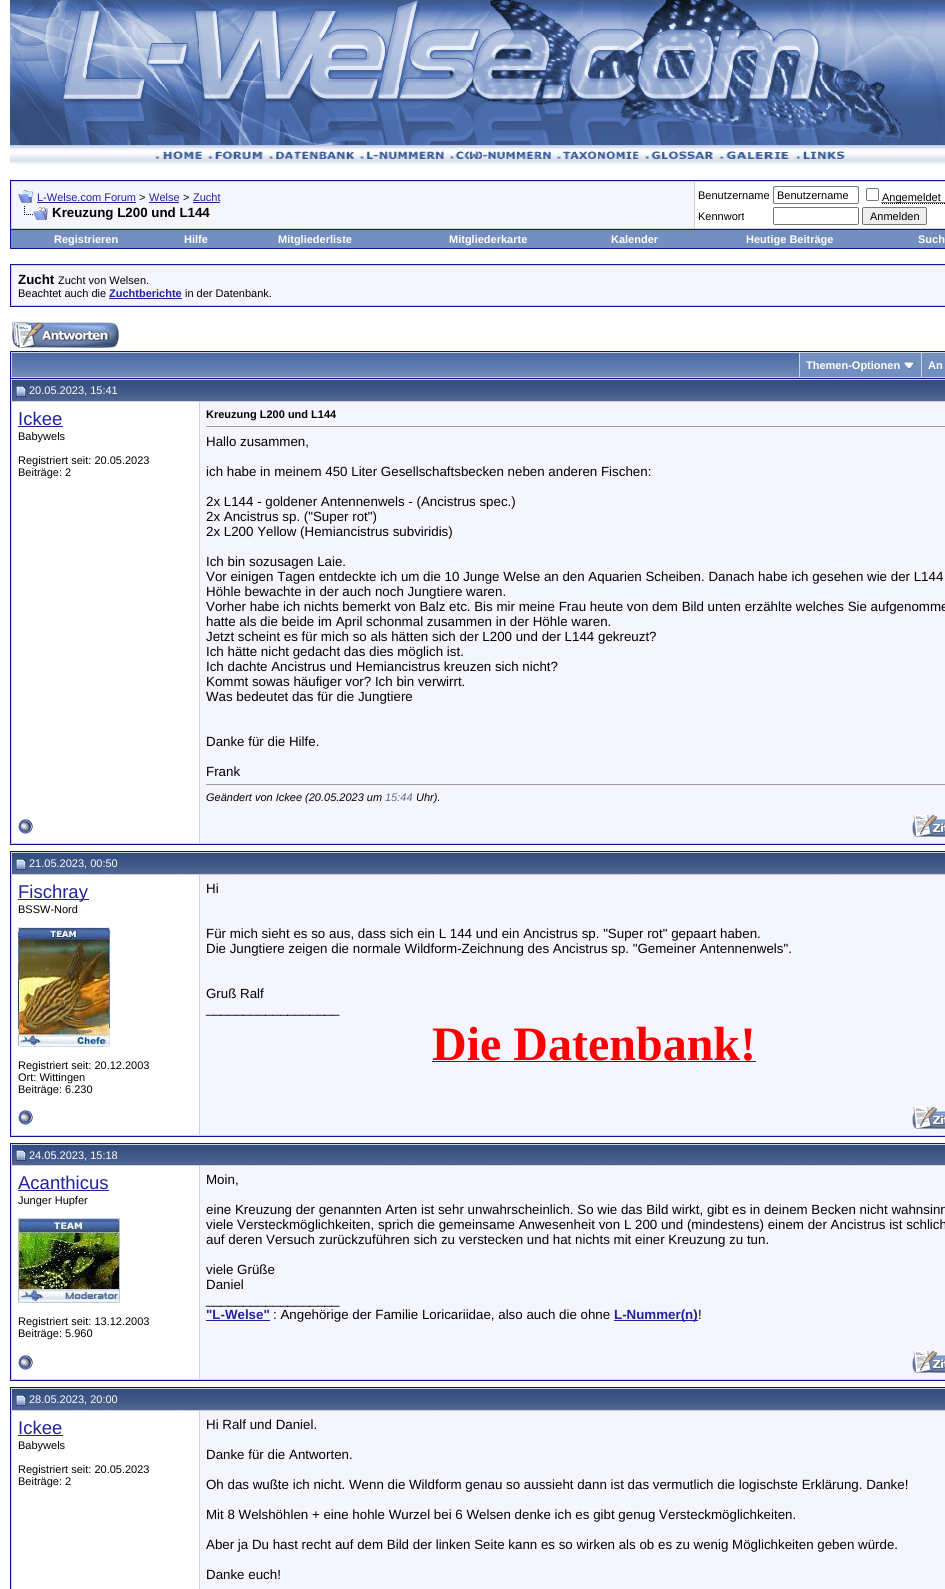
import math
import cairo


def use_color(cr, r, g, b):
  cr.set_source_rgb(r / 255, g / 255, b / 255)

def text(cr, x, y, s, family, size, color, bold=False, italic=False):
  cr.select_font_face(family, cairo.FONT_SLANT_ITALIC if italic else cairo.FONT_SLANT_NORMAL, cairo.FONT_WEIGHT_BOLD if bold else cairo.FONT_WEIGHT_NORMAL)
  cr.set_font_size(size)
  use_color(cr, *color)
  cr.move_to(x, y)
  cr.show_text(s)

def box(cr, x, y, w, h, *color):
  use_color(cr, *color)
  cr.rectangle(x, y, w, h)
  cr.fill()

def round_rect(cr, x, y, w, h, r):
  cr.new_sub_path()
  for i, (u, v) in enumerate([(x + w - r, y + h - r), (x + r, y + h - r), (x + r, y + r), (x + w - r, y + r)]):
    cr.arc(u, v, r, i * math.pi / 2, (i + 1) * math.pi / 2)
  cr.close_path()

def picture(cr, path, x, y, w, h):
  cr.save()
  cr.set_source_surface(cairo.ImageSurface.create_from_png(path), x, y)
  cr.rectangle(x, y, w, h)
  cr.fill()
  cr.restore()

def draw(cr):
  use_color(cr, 255, 255, 255)
  cr.paint()
  picture(cr, "img_01.png", 10, 0, 935, 145)
  picture(cr, "img_02.png", 10, 145, 935, 19)
  picture(cr, "img_03.png", 155, 151, 47, 8)
  picture(cr, "img_04.png", 208, 151, 55, 8)
  picture(cr, "img_05.png", 269, 151, 85, 8)
  picture(cr, "img_06.png", 360, 151, 84, 8)
  picture(cr, "img_07.png", 450, 151, 101, 8)
  picture(cr, "img_08.png", 557, 151, 82, 8)
  picture(cr, "img_09.png", 645, 151, 68, 8)
  picture(cr, "img_10.png", 719, 151, 71, 8)
  picture(cr, "img_11.png", 796, 151, 49, 8)
  use_color(cr, 209, 209, 225)
  cr.rectangle(10.5, 180.5, 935, 49)
  cr.fill_preserve()
  use_color(cr, 11, 25, 140)
  cr.set_line_width(1)
  cr.stroke()
  box(cr, 12, 182, 682, 46, 245, 245, 255)
  picture(cr, "img_12.png", 18, 190, 15, 13)
  box(cr, 37, 202, 99, 1, 34, 34, 156)
  box(cr, 149, 202, 30, 1, 34, 34, 156)
  box(cr, 193, 202, 27, 1, 34, 34, 156)
  picture(cr, "img_13.png", 24, 206, 24, 14)
  box(cr, 695, 182, 250, 46, 255, 255, 255)
  round_rect(cr, 773.5, 186.5, 85, 17, 1.5)
  use_color(cr, 118, 118, 118)
  cr.stroke()
  round_rect(cr, 866.5, 188.5, 12, 12, 1.5)
  cr.stroke()
  cr.new_path()
  cr.move_to(882, 203.5)
  cr.line_to(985, 203.5)
  use_color(cr, 0, 0, 0)
  cr.set_dash([1, 1])
  cr.stroke()
  cr.new_path()
  cr.move_to(881.5, 202.5)
  cr.line_to(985, 202.5)
  cr.stroke()
  round_rect(cr, 773.5, 207.5, 85, 17, 1.5)
  use_color(cr, 118, 118, 118)
  cr.set_dash([])
  cr.stroke()
  use_color(cr, 239, 239, 239)
  round_rect(cr, 862.5, 207.5, 64, 17, 1.5)
  cr.fill_preserve()
  use_color(cr, 118, 118, 118)
  cr.stroke()
  box(cr, 10, 248, 935, 1, 11, 25, 140)
  box(cr, 10, 230, 1, 19, 11, 25, 140)
  box(cr, 11, 230, 934, 18, 115, 143, 191)
  use_color(cr, 209, 209, 225)
  cr.rectangle(10.5, 264.5, 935, 42)
  cr.fill_preserve()
  use_color(cr, 11, 25, 140)
  cr.stroke()
  box(cr, 12, 266, 933, 39, 245, 245, 255)
  box(cr, 109, 298, 73, 1, 34, 34, 156)
  picture(cr, "img_14.png", 11, 322, 108, 26)
  box(cr, 11, 352, 934, 26, 209, 209, 225)
  box(cr, 10, 351, 935, 1, 11, 25, 140)
  box(cr, 10, 351, 1, 27, 11, 25, 140)
  picture(cr, "img_15.png", 12, 353, 787, 24)
  box(cr, 800, 353, 121, 24, 115, 143, 191)
  picture(cr, "img_16.png", 904, 362, 11, 7)
  box(cr, 922, 353, 23, 24, 115, 143, 191)
  cr.rectangle(10.5, 378.5, 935, 466)
  use_color(cr, 11, 25, 140)
  cr.stroke()
  picture(cr, "img_17.png", 12, 380, 188, 21)
  box(cr, 11, 379, 934, 1, 209, 209, 225)
  box(cr, 11, 401, 934, 1, 209, 209, 225)
  box(cr, 11, 379, 1, 430, 209, 209, 225)
  picture(cr, "img_18.png", 16, 386, 10, 11)
  picture(cr, "img_19.png", 200, 380, 745, 21)
  box(cr, 199, 402, 1, 442, 209, 209, 225)
  box(cr, 18, 426, 45, 1, 34, 34, 156)
  box(cr, 200, 402, 745, 441, 245, 245, 255)
  box(cr, 206, 426, 739, 1, 159, 159, 159)
  box(cr, 206, 784, 739, 1, 159, 159, 159)
  box(cr, 11, 843, 934, 1, 209, 209, 225)
  box(cr, 11, 809, 1, 35, 209, 209, 225)
  picture(cr, "img_20.png", 18, 819, 15, 15)
  picture(cr, "img_21.png", 912, 815, 33, 22)
  cr.rectangle(10.5, 851.5, 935, 285)
  use_color(cr, 11, 25, 140)
  cr.stroke()
  picture(cr, "img_17.png", 12, 853, 188, 21)
  box(cr, 11, 852, 934, 1, 209, 209, 225)
  box(cr, 11, 874, 934, 1, 209, 209, 225)
  box(cr, 11, 852, 1, 249, 209, 209, 225)
  picture(cr, "img_18.png", 16, 859, 10, 11)
  picture(cr, "img_19.png", 200, 853, 745, 21)
  box(cr, 199, 875, 1, 261, 209, 209, 225)
  box(cr, 18, 899, 71, 1, 34, 34, 156)
  picture(cr, "img_22.png", 18, 927, 92, 120)
  box(cr, 200, 875, 745, 260, 245, 245, 255)
  box(cr, 432, 1061, 324, 1, 34, 34, 156)
  box(cr, 11, 1135, 934, 1, 209, 209, 225)
  box(cr, 11, 1101, 1, 35, 209, 209, 225)
  picture(cr, "img_20.png", 18, 1110, 15, 15)
  picture(cr, "img_21.png", 912, 1107, 33, 22)
  cr.rectangle(10.5, 1143.5, 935, 237)
  use_color(cr, 11, 25, 140)
  cr.stroke()
  picture(cr, "img_23.png", 12, 1145, 188, 20)
  box(cr, 11, 1144, 934, 1, 209, 209, 225)
  box(cr, 11, 1165, 934, 1, 209, 209, 225)
  box(cr, 11, 1144, 1, 201, 209, 209, 225)
  picture(cr, "img_24.png", 16, 1150, 10, 11)
  picture(cr, "img_25.png", 200, 1145, 745, 20)
  box(cr, 199, 1166, 1, 214, 209, 209, 225)
  box(cr, 18, 1190, 91, 1, 34, 34, 156)
  picture(cr, "img_26.png", 18, 1218, 102, 85)
  box(cr, 200, 1166, 745, 213, 245, 245, 255)
  box(cr, 206, 1320, 64, 1, 34, 34, 156)
  box(cr, 614, 1320, 84, 1, 34, 34, 156)
  box(cr, 11, 1379, 934, 1, 209, 209, 225)
  box(cr, 11, 1345, 1, 35, 209, 209, 225)
  picture(cr, "img_20.png", 18, 1355, 15, 15)
  picture(cr, "img_21.png", 912, 1351, 33, 22)
  cr.rectangle(10.5, 1387.5, 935, 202)
  use_color(cr, 11, 25, 140)
  cr.stroke()
  picture(cr, "img_17.png", 12, 1389, 188, 21)
  box(cr, 11, 1388, 934, 1, 209, 209, 225)
  box(cr, 11, 1410, 934, 1, 209, 209, 225)
  box(cr, 11, 1388, 1, 201, 209, 209, 225)
  picture(cr, "img_18.png", 16, 1395, 10, 11)
  picture(cr, "img_19.png", 200, 1389, 745, 21)
  box(cr, 199, 1411, 1, 178, 209, 209, 225)
  box(cr, 18, 1435, 45, 1, 34, 34, 156)
  box(cr, 200, 1411, 745, 178, 245, 245, 255)
  text(cr, 37, 201, "L-Welse.com Forum", "Liberation Sans", 11, (34, 34, 156))
  text(cr, 139, 201, ">", "Liberation Sans", 11, (0, 0, 0))
  text(cr, 149, 201, "Welse", "Liberation Sans", 11, (34, 34, 156))
  text(cr, 183, 201, ">", "Liberation Sans", 11, (0, 0, 0))
  text(cr, 193, 201, "Zucht", "Liberation Sans", 11, (34, 34, 156))
  text(cr, 52, 217, "Kreuzung L200 und L144", "Liberation Sans", 13.33, (0, 0, 0), bold=True)
  text(cr, 698, 199, "Benutzername", "Liberation Sans", 11, (0, 0, 0))
  text(cr, 777, 199, "Benutzername", "Liberation Sans", 11, (0, 0, 0))
  text(cr, 882, 201, "Angemeldet", "Liberation Sans", 11, (0, 0, 0))
  text(cr, 698, 220, "Kennwort", "Liberation Sans", 11, (0, 0, 0))
  text(cr, 870, 220, "Anmelden", "Liberation Sans", 11, (0, 0, 0))
  text(cr, 54, 243, "Registrieren", "Liberation Sans", 11, (255, 255, 255), bold=True)
  text(cr, 184, 243, "Hilfe", "Liberation Sans", 11, (255, 255, 255), bold=True)
  text(cr, 278, 243, "Mitgliederliste", "Liberation Sans", 11, (255, 255, 255), bold=True)
  text(cr, 449, 243, "Mitgliederkarte", "Liberation Sans", 11, (255, 255, 255), bold=True)
  text(cr, 611, 243, "Kalender", "Liberation Sans", 11, (255, 255, 255), bold=True)
  text(cr, 746, 243, "Heutige Beiträge", "Liberation Sans", 11, (255, 255, 255), bold=True)
  text(cr, 918, 243, "Such", "Liberation Sans", 11, (255, 255, 255), bold=True)
  text(cr, 18, 284, "Zucht", "Liberation Sans", 13.33, (0, 0, 0), bold=True)
  text(cr, 58, 284, "Zucht von Welsen.", "Liberation Sans", 11, (0, 0, 0))
  text(cr, 18, 297, "Beachtet auch die", "Liberation Sans", 11, (0, 0, 0))
  text(cr, 109, 297, "Zuchtberichte", "Liberation Sans", 11, (34, 34, 156), bold=True)
  text(cr, 185, 297, "in der Datenbank.", "Liberation Sans", 11, (0, 0, 0))
  text(cr, 806, 369, "Themen-Optionen", "Liberation Sans", 11, (255, 255, 255), bold=True)
  text(cr, 928, 369, "An", "Liberation Sans", 11, (255, 255, 255), bold=True)
  text(cr, 29, 394, "20.05.2023, 15:41", "Liberation Sans", 11, (255, 255, 255))
  text(cr, 18, 425, "Ickee", "Liberation Sans", 18.5, (34, 34, 156))
  text(cr, 18, 440, "Babywels", "Liberation Sans", 11, (0, 0, 0))
  text(cr, 18, 464, "Registriert seit: 20.05.2023", "Liberation Sans", 11, (0, 0, 0))
  text(cr, 18, 476, "Beiträge: 2", "Liberation Sans", 11, (0, 0, 0))
  text(cr, 206, 418, "Kreuzung L200 und L144", "Liberation Sans", 11, (0, 0, 0), bold=True)
  text(cr, 206, 446, "Hallo zusammen,", "Liberation Sans", 13.33, (0, 0, 0))
  text(cr, 206, 476, "ich habe in meinem 450 Liter Gesellschaftsbecken neben anderen Fischen:", "Liberation Sans", 13.33, (0, 0, 0))
  text(cr, 206, 506, "2x L144 - goldener Antennenwels - (Ancistrus spec.)", "Liberation Sans", 13.33, (0, 0, 0))
  text(cr, 206, 521, "2x Ancistrus sp. (\"Super rot\")", "Liberation Sans", 13.33, (0, 0, 0))
  text(cr, 206, 536, "2x L200 Yellow (Hemiancistrus subviridis)", "Liberation Sans", 13.33, (0, 0, 0))
  text(cr, 206, 566, "Ich bin sozusagen Laie.", "Liberation Sans", 13.33, (0, 0, 0))
  text(cr, 206, 581, "Vor einigen Tagen entdeckte ich um die 10 Junge Welse an den Aquarien Scheiben. Danach habe ich gesehen wie der L144", "Liberation Sans", 13.33, (0, 0, 0))
  text(cr, 206, 596, "Höhle bewachte in der auch noch Jungtiere waren.", "Liberation Sans", 13.33, (0, 0, 0))
  text(cr, 206, 611, "Vorher habe ich nichts bemerkt von Balz etc. Bis mir meine Frau heute von dem Bild unten erzählte welches Sie aufgenomme", "Liberation Sans", 13.33, (0, 0, 0))
  text(cr, 206, 626, "hatte als die beide im April schonmal zusammen in der Höhle waren.", "Liberation Sans", 13.33, (0, 0, 0))
  text(cr, 206, 641, "Jetzt scheint es für mich so als hätten sich der L200 und der L144 gekreuzt?", "Liberation Sans", 13.33, (0, 0, 0))
  text(cr, 206, 656, "Ich hätte nicht gedacht das dies möglich ist.", "Liberation Sans", 13.33, (0, 0, 0))
  text(cr, 206, 671, "Ich dachte Ancistrus und Hemiancistrus kreuzen sich nicht?", "Liberation Sans", 13.33, (0, 0, 0))
  text(cr, 206, 686, "Kommt sowas häufiger vor? Ich bin verwirrt.", "Liberation Sans", 13.33, (0, 0, 0))
  text(cr, 206, 701, "Was bedeutet das für die Jungtiere", "Liberation Sans", 13.33, (0, 0, 0))
  text(cr, 206, 746, "Danke für die Hilfe.", "Liberation Sans", 13.33, (0, 0, 0))
  text(cr, 206, 776, "Frank", "Liberation Sans", 13.33, (0, 0, 0))
  text(cr, 206, 801, "Geändert von Ickee (20.05.2023 um", "Liberation Sans", 11, (0, 0, 0), italic=True)
  text(cr, 385, 801, "15:44", "Liberation Sans", 11, (102, 102, 134), italic=True)
  text(cr, 416, 801, "Uhr).", "Liberation Sans", 11, (0, 0, 0), italic=True)
  text(cr, 29, 867, "21.05.2023, 00:50", "Liberation Sans", 11, (255, 255, 255))
  text(cr, 18, 898, "Fischray", "Liberation Sans", 18.5, (34, 34, 156))
  text(cr, 18, 913, "BSSW-Nord", "Liberation Sans", 11, (0, 0, 0))
  text(cr, 18, 1069, "Registriert seit: 20.12.2003", "Liberation Sans", 11, (0, 0, 0))
  text(cr, 18, 1081, "Ort: Wittingen", "Liberation Sans", 11, (0, 0, 0))
  text(cr, 18, 1093, "Beiträge: 6.230", "Liberation Sans", 11, (0, 0, 0))
  text(cr, 206, 893, "Hi", "Liberation Sans", 13.33, (0, 0, 0))
  text(cr, 206, 938, "Für mich sieht es so aus, dass sich ein L 144 und ein Ancistrus sp. \"Super rot\" gepaart haben.", "Liberation Sans", 13.33, (0, 0, 0))
  text(cr, 206, 953, "Die Jungtiere zeigen die normale Wildform-Zeichnung des Ancistrus sp. \"Gemeiner Antennenwels\".", "Liberation Sans", 13.33, (0, 0, 0))
  text(cr, 206, 998, "Gruß Ralf", "Liberation Sans", 13.33, (0, 0, 0))
  text(cr, 206, 1013, "__________________", "Liberation Sans", 13.33, (0, 0, 0))
  text(cr, 432, 1060, "Die Datenbank!", "Liberation Serif", 48, (255, 0, 0), bold=True)
  text(cr, 29, 1159, "24.05.2023, 15:18", "Liberation Sans", 11, (255, 255, 255))
  text(cr, 18, 1189, "Acanthicus", "Liberation Sans", 18.5, (34, 34, 156))
  text(cr, 18, 1204, "Junger Hupfer", "Liberation Sans", 11, (0, 0, 0))
  text(cr, 18, 1325, "Registriert seit: 13.12.2003", "Liberation Sans", 11, (0, 0, 0))
  text(cr, 18, 1337, "Beiträge: 5.960", "Liberation Sans", 11, (0, 0, 0))
  text(cr, 206, 1184, "Moin,", "Liberation Sans", 13.33, (0, 0, 0))
  text(cr, 206, 1214, "eine Kreuzung der genannten Arten ist sehr unwahrscheinlich. So wie das Bild wirkt, gibt es in deinem Becken nicht wahnsinn", "Liberation Sans", 13.33, (0, 0, 0))
  text(cr, 206, 1229, "viele Versteckmöglichkeiten, sprich die gemeinsame Anwesenheit von L 200 und (mindestens) einem der Ancistrus ist schlich", "Liberation Sans", 13.33, (0, 0, 0))
  text(cr, 206, 1244, "auf deren Versuch zurückzuführen sich zu verstecken und hat nichts mit einer Kreuzung zu tun.", "Liberation Sans", 13.33, (0, 0, 0))
  text(cr, 206, 1274, "viele Grüße", "Liberation Sans", 13.33, (0, 0, 0))
  text(cr, 206, 1289, "Daniel", "Liberation Sans", 13.33, (0, 0, 0))
  text(cr, 206, 1304, "__________________", "Liberation Sans", 13.33, (0, 0, 0))
  text(cr, 206, 1319, "\"L-Welse\"", "Liberation Sans", 13.33, (34, 34, 156), bold=True)
  text(cr, 273, 1319, ": Angehörige der Familie Loricariidae, also auch die ohne", "Liberation Sans", 13.33, (0, 0, 0))
  text(cr, 614, 1319, "L-Nummer(n)", "Liberation Sans", 13.33, (34, 34, 156), bold=True)
  text(cr, 698, 1319, "!", "Liberation Sans", 13.33, (0, 0, 0))
  text(cr, 29, 1403, "28.05.2023, 20:00", "Liberation Sans", 11, (255, 255, 255))
  text(cr, 18, 1434, "Ickee", "Liberation Sans", 18.5, (34, 34, 156))
  text(cr, 18, 1449, "Babywels", "Liberation Sans", 11, (0, 0, 0))
  text(cr, 18, 1473, "Registriert seit: 20.05.2023", "Liberation Sans", 11, (0, 0, 0))
  text(cr, 18, 1485, "Beiträge: 2", "Liberation Sans", 11, (0, 0, 0))
  text(cr, 206, 1429, "Hi Ralf und Daniel.", "Liberation Sans", 13.33, (0, 0, 0))
  text(cr, 206, 1459, "Danke für die Antworten.", "Liberation Sans", 13.33, (0, 0, 0))
  text(cr, 206, 1489, "Oh das wußte ich nicht. Wenn die Wildform genau so aussieht dann ist das vermutlich die logischste Erklärung. Danke!", "Liberation Sans", 13.33, (0, 0, 0))
  text(cr, 206, 1519, "Mit 8 Welshöhlen + eine hohle Wurzel bei 6 Welsen denke ich es gibt genug Versteckmöglichkeiten.", "Liberation Sans", 13.33, (0, 0, 0))
  text(cr, 206, 1549, "Aber ja Du hast recht auf dem Bild der linken Seite kann es so wirken als ob es zu wenig Möglichkeiten geben würde.", "Liberation Sans", 13.33, (0, 0, 0))
  text(cr, 206, 1579, "Danke euch!", "Liberation Sans", 13.33, (0, 0, 0))


surface = cairo.ImageSurface(cairo.FORMAT_RGB24, 945, 1589)
cr = cairo.Context(surface)
options = cairo.FontOptions()
options.set_hint_metrics(cairo.HINT_METRICS_OFF)
options.set_hint_style(cairo.HINT_STYLE_NONE)
cr.set_font_options(options)
cr.set_miter_limit(4)
draw(cr)
surface.write_to_png("out.png")
